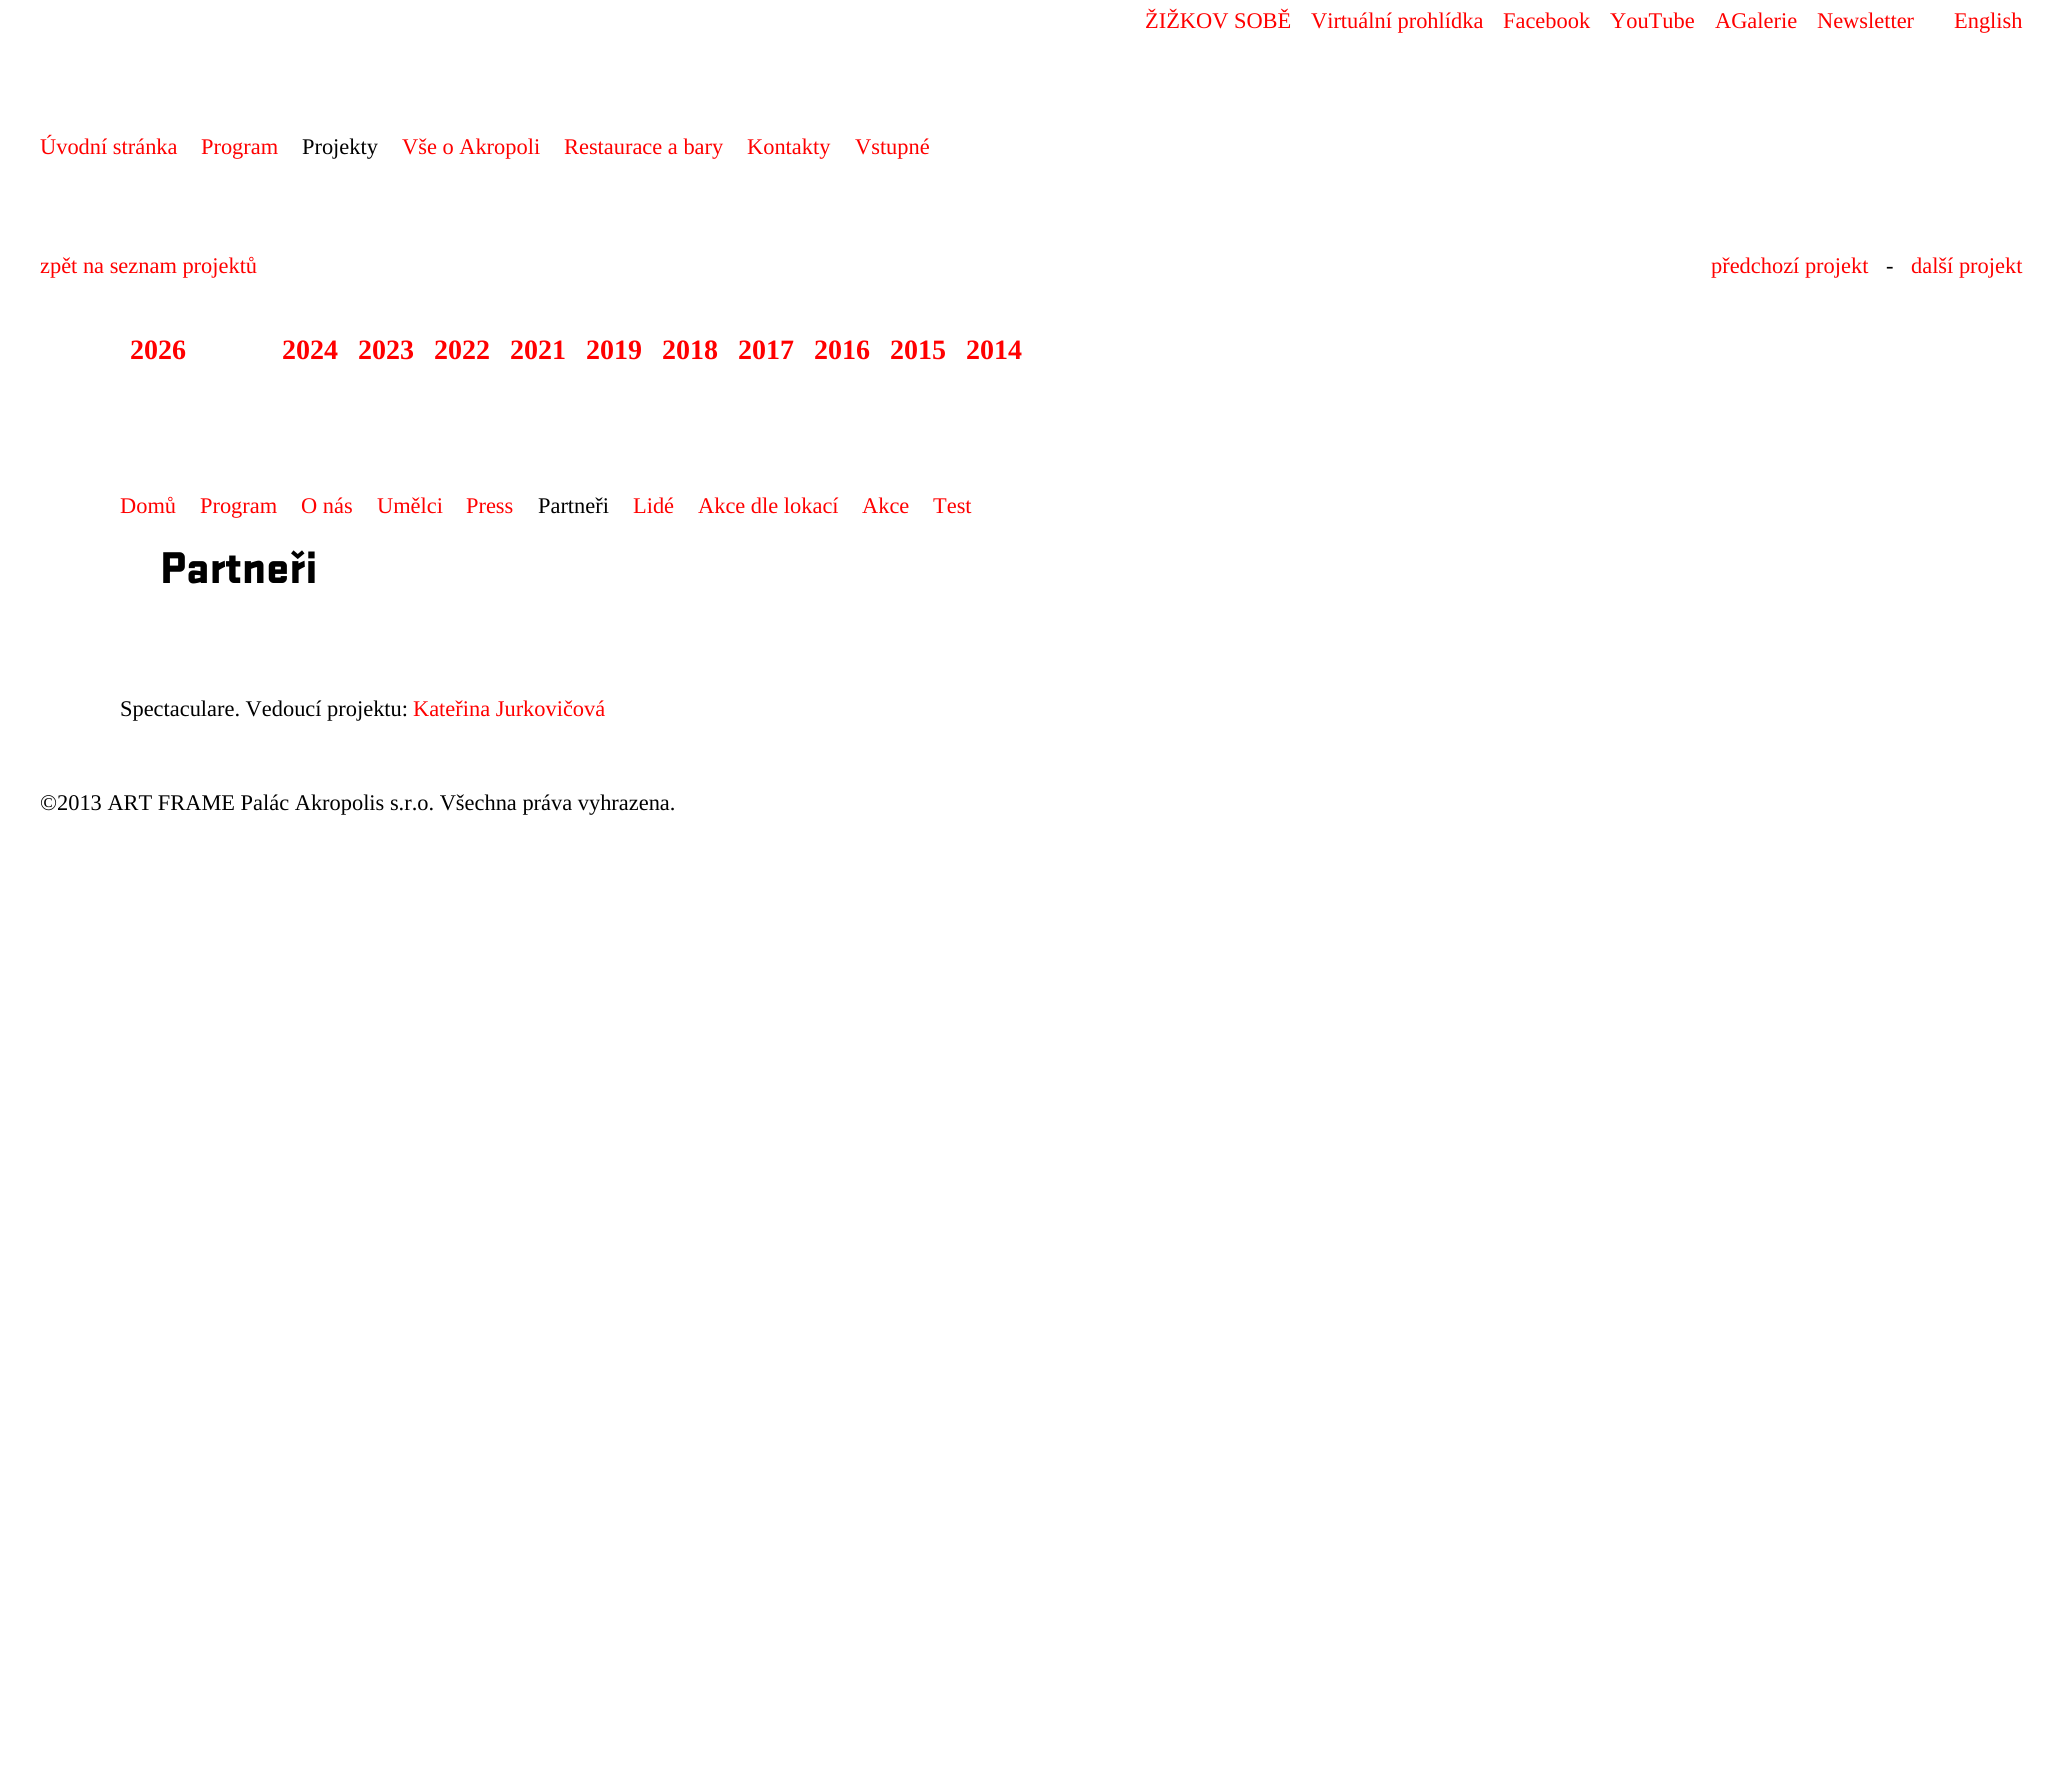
import math
import cairo


def use_color(cr, r, g, b):
  cr.set_source_rgb(r / 255, g / 255, b / 255)

def text(cr, x, y, s, family, size, color, bold=False, italic=False):
  cr.select_font_face(family, cairo.FONT_SLANT_ITALIC if italic else cairo.FONT_SLANT_NORMAL, cairo.FONT_WEIGHT_BOLD if bold else cairo.FONT_WEIGHT_NORMAL)
  cr.set_font_size(size)
  use_color(cr, *color)
  cr.move_to(x, y)
  cr.show_text(s)

def draw(cr):
  use_color(cr, 255, 255, 255)
  cr.paint()
  text(cr, 1145, 28, "ŽIŽKOV SOBĚ", "Liberation Serif", 22.4, (255, 0, 0))
  text(cr, 1311, 28, "Virtuální prohlídka", "Liberation Serif", 22.4, (255, 0, 0))
  text(cr, 1503, 28, "Facebook", "Liberation Serif", 22.4, (255, 0, 0))
  text(cr, 1610, 28, "YouTube", "Liberation Serif", 22.4, (255, 0, 0))
  text(cr, 1715, 28, "AGalerie", "Liberation Serif", 22.4, (255, 0, 0))
  text(cr, 1817, 28, "Newsletter", "Liberation Serif", 22.4, (255, 0, 0))
  text(cr, 1954, 28, "English", "Liberation Serif", 22.4, (255, 0, 0))
  text(cr, 40, 154, "Úvodní stránka", "Liberation Serif", 22.4, (255, 0, 0))
  text(cr, 201, 154, "Program", "Liberation Serif", 22.4, (255, 0, 0))
  text(cr, 302, 154, "Projekty", "Liberation Serif", 22.4, (0, 0, 0))
  text(cr, 402, 154, "Vše o Akropoli", "Liberation Serif", 22.4, (255, 0, 0))
  text(cr, 564, 154, "Restaurace a bary", "Liberation Serif", 22.4, (255, 0, 0))
  text(cr, 747, 154, "Kontakty", "Liberation Serif", 22.4, (255, 0, 0))
  text(cr, 855, 154, "Vstupné", "Liberation Serif", 22.4, (255, 0, 0))
  text(cr, 40, 273, "zpět na seznam projektů", "Liberation Serif", 22.4, (255, 0, 0))
  text(cr, 1711, 273, "předchozí projekt", "Liberation Serif", 22.4, (255, 0, 0))
  text(cr, 1886, 273, "-", "Liberation Serif", 22.4, (0, 0, 0))
  text(cr, 1911, 273, "další projekt", "Liberation Serif", 22.4, (255, 0, 0))
  text(cr, 130, 359, "2026", "Liberation Serif", 28, (255, 0, 0), bold=True)
  text(cr, 282, 359, "2024", "Liberation Serif", 28, (255, 0, 0), bold=True)
  text(cr, 358, 359, "2023", "Liberation Serif", 28, (255, 0, 0), bold=True)
  text(cr, 434, 359, "2022", "Liberation Serif", 28, (255, 0, 0), bold=True)
  text(cr, 510, 359, "2021", "Liberation Serif", 28, (255, 0, 0), bold=True)
  text(cr, 586, 359, "2019", "Liberation Serif", 28, (255, 0, 0), bold=True)
  text(cr, 662, 359, "2018", "Liberation Serif", 28, (255, 0, 0), bold=True)
  text(cr, 738, 359, "2017", "Liberation Serif", 28, (255, 0, 0), bold=True)
  text(cr, 814, 359, "2016", "Liberation Serif", 28, (255, 0, 0), bold=True)
  text(cr, 890, 359, "2015", "Liberation Serif", 28, (255, 0, 0), bold=True)
  text(cr, 966, 359, "2014", "Liberation Serif", 28, (255, 0, 0), bold=True)
  text(cr, 120, 513, "Domů", "Liberation Serif", 22.4, (255, 0, 0))
  text(cr, 200, 513, "Program", "Liberation Serif", 22.4, (255, 0, 0))
  text(cr, 301, 513, "O nás", "Liberation Serif", 22.4, (255, 0, 0))
  text(cr, 377, 513, "Umělci", "Liberation Serif", 22.4, (255, 0, 0))
  text(cr, 466, 513, "Press", "Liberation Serif", 22.4, (255, 0, 0))
  text(cr, 538, 513, "Partneři", "Liberation Serif", 22.4, (0, 0, 0))
  text(cr, 633, 513, "Lidé", "Liberation Serif", 22.4, (255, 0, 0))
  text(cr, 698, 513, "Akce dle lokací", "Liberation Serif", 22.4, (255, 0, 0))
  text(cr, 862, 513, "Akce", "Liberation Serif", 22.4, (255, 0, 0))
  text(cr, 933, 513, "Test", "Liberation Serif", 22.4, (255, 0, 0))
  text(cr, 160, 583, "Partneři", "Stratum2 Black", 42, (0, 0, 0))
  text(cr, 120, 716, "Spectaculare. Vedoucí projektu:", "Liberation Serif", 22.4, (0, 0, 0))
  text(cr, 413, 716, "Kateřina Jurkovičová", "Liberation Serif", 22.4, (255, 0, 0))
  text(cr, 40, 810, "©2013 ART FRAME Palác Akropolis s.r.o. Všechna práva vyhrazena.", "Liberation Serif", 22.4, (0, 0, 0))


surface = cairo.ImageSurface(cairo.FORMAT_RGB24, 2062, 1783)
cr = cairo.Context(surface)
options = cairo.FontOptions()
options.set_hint_metrics(cairo.HINT_METRICS_OFF)
options.set_hint_style(cairo.HINT_STYLE_NONE)
cr.set_font_options(options)
cr.set_miter_limit(4)
draw(cr)
surface.write_to_png("out.png")
